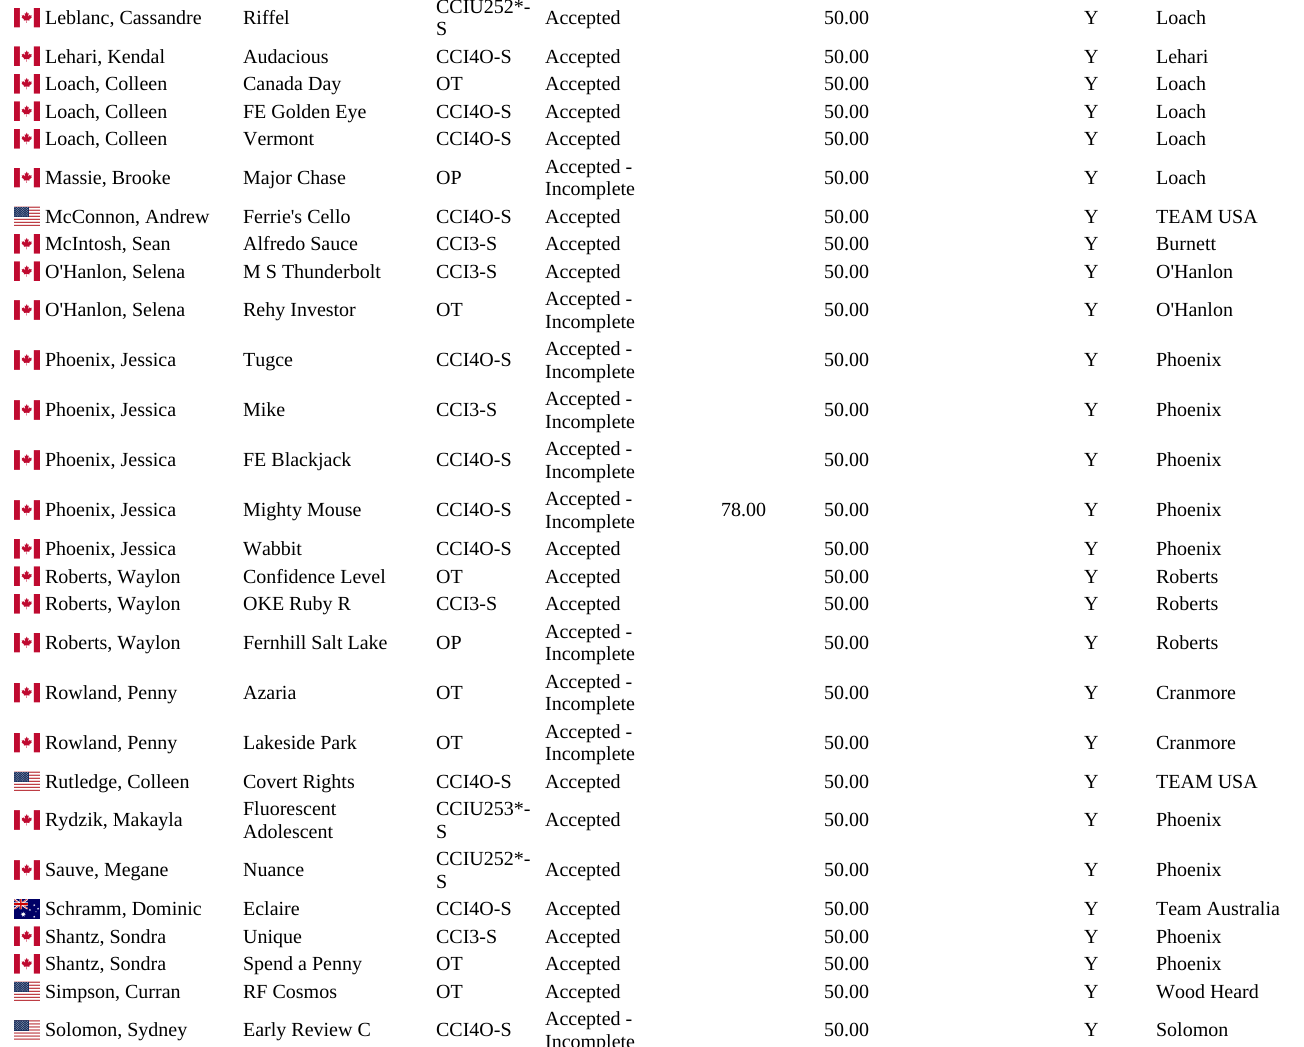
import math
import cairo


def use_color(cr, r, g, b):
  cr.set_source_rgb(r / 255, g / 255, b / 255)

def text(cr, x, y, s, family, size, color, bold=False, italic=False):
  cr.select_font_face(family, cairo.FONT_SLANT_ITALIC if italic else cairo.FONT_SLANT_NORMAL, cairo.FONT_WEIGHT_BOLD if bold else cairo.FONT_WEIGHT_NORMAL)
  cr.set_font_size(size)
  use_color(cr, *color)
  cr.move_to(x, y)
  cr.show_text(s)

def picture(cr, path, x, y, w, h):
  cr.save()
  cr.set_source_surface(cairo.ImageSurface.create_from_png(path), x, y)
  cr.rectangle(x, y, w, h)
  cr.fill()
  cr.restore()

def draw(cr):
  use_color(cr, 255, 255, 255)
  cr.paint()
  picture(cr, "img_01.png", 14, 8, 26, 20)
  picture(cr, "img_02.png", 14, 46, 26, 20)
  picture(cr, "img_03.png", 14, 74, 26, 20)
  picture(cr, "img_02.png", 14, 101, 26, 20)
  picture(cr, "img_03.png", 14, 129, 26, 20)
  picture(cr, "img_01.png", 14, 168, 26, 20)
  picture(cr, "img_04.png", 14, 206, 26, 20)
  picture(cr, "img_03.png", 14, 234, 26, 20)
  picture(cr, "img_02.png", 14, 261, 26, 20)
  picture(cr, "img_05.png", 14, 300, 26, 20)
  picture(cr, "img_05.png", 14, 350, 26, 20)
  picture(cr, "img_05.png", 14, 400, 26, 20)
  picture(cr, "img_05.png", 14, 450, 26, 20)
  picture(cr, "img_05.png", 14, 500, 26, 20)
  picture(cr, "img_03.png", 14, 539, 26, 20)
  picture(cr, "img_02.png", 14, 566, 26, 20)
  picture(cr, "img_03.png", 14, 594, 26, 20)
  picture(cr, "img_01.png", 14, 633, 26, 20)
  picture(cr, "img_01.png", 14, 683, 26, 20)
  picture(cr, "img_01.png", 14, 733, 26, 20)
  picture(cr, "img_04.png", 14, 771, 26, 20)
  picture(cr, "img_05.png", 14, 810, 26, 20)
  picture(cr, "img_05.png", 14, 860, 26, 20)
  picture(cr, "img_06.png", 14, 899, 26, 20)
  picture(cr, "img_02.png", 14, 926, 26, 20)
  picture(cr, "img_03.png", 14, 954, 26, 20)
  picture(cr, "img_04.png", 14, 981, 26, 20)
  picture(cr, "img_07.png", 14, 1020, 26, 20)
  text(cr, 45, 24, "Leblanc, Cassandre", "Liberation Serif", 20, (0, 0, 0))
  text(cr, 243, 24, "Riffel", "Liberation Serif", 20, (0, 0, 0))
  text(cr, 436, 13, "CCIU252*-", "Liberation Serif", 20, (0, 0, 0))
  text(cr, 436, 35, "S", "Liberation Serif", 20, (0, 0, 0))
  text(cr, 545, 24, "Accepted", "Liberation Serif", 20, (0, 0, 0))
  text(cr, 824, 24, "50.00", "Liberation Serif", 20, (0, 0, 0))
  text(cr, 1084, 24, "Y", "Liberation Serif", 20, (0, 0, 0))
  text(cr, 1156, 24, "Loach", "Liberation Serif", 20, (0, 0, 0))
  text(cr, 45, 63, "Lehari, Kendal", "Liberation Serif", 20, (0, 0, 0))
  text(cr, 243, 63, "Audacious", "Liberation Serif", 20, (0, 0, 0))
  text(cr, 436, 63, "CCI4O-S", "Liberation Serif", 20, (0, 0, 0))
  text(cr, 545, 63, "Accepted", "Liberation Serif", 20, (0, 0, 0))
  text(cr, 824, 63, "50.00", "Liberation Serif", 20, (0, 0, 0))
  text(cr, 1084, 63, "Y", "Liberation Serif", 20, (0, 0, 0))
  text(cr, 1156, 63, "Lehari", "Liberation Serif", 20, (0, 0, 0))
  text(cr, 45, 90, "Loach, Colleen", "Liberation Serif", 20, (0, 0, 0))
  text(cr, 243, 90, "Canada Day", "Liberation Serif", 20, (0, 0, 0))
  text(cr, 436, 90, "OT", "Liberation Serif", 20, (0, 0, 0))
  text(cr, 545, 90, "Accepted", "Liberation Serif", 20, (0, 0, 0))
  text(cr, 824, 90, "50.00", "Liberation Serif", 20, (0, 0, 0))
  text(cr, 1084, 90, "Y", "Liberation Serif", 20, (0, 0, 0))
  text(cr, 1156, 90, "Loach", "Liberation Serif", 20, (0, 0, 0))
  text(cr, 45, 118, "Loach, Colleen", "Liberation Serif", 20, (0, 0, 0))
  text(cr, 243, 118, "FE Golden Eye", "Liberation Serif", 20, (0, 0, 0))
  text(cr, 436, 118, "CCI4O-S", "Liberation Serif", 20, (0, 0, 0))
  text(cr, 545, 118, "Accepted", "Liberation Serif", 20, (0, 0, 0))
  text(cr, 824, 118, "50.00", "Liberation Serif", 20, (0, 0, 0))
  text(cr, 1084, 118, "Y", "Liberation Serif", 20, (0, 0, 0))
  text(cr, 1156, 118, "Loach", "Liberation Serif", 20, (0, 0, 0))
  text(cr, 45, 145, "Loach, Colleen", "Liberation Serif", 20, (0, 0, 0))
  text(cr, 243, 145, "Vermont", "Liberation Serif", 20, (0, 0, 0))
  text(cr, 436, 145, "CCI4O-S", "Liberation Serif", 20, (0, 0, 0))
  text(cr, 545, 145, "Accepted", "Liberation Serif", 20, (0, 0, 0))
  text(cr, 824, 145, "50.00", "Liberation Serif", 20, (0, 0, 0))
  text(cr, 1084, 145, "Y", "Liberation Serif", 20, (0, 0, 0))
  text(cr, 1156, 145, "Loach", "Liberation Serif", 20, (0, 0, 0))
  text(cr, 45, 184, "Massie, Brooke", "Liberation Serif", 20, (0, 0, 0))
  text(cr, 243, 184, "Major Chase", "Liberation Serif", 20, (0, 0, 0))
  text(cr, 436, 184, "OP", "Liberation Serif", 20, (0, 0, 0))
  text(cr, 545, 173, "Accepted -", "Liberation Serif", 20, (0, 0, 0))
  text(cr, 545, 195, "Incomplete", "Liberation Serif", 20, (0, 0, 0))
  text(cr, 824, 184, "50.00", "Liberation Serif", 20, (0, 0, 0))
  text(cr, 1084, 184, "Y", "Liberation Serif", 20, (0, 0, 0))
  text(cr, 1156, 184, "Loach", "Liberation Serif", 20, (0, 0, 0))
  text(cr, 45, 223, "McConnon, Andrew", "Liberation Serif", 20, (0, 0, 0))
  text(cr, 243, 223, "Ferrie's Cello", "Liberation Serif", 20, (0, 0, 0))
  text(cr, 436, 223, "CCI4O-S", "Liberation Serif", 20, (0, 0, 0))
  text(cr, 545, 223, "Accepted", "Liberation Serif", 20, (0, 0, 0))
  text(cr, 824, 223, "50.00", "Liberation Serif", 20, (0, 0, 0))
  text(cr, 1084, 223, "Y", "Liberation Serif", 20, (0, 0, 0))
  text(cr, 1156, 223, "TEAM USA", "Liberation Serif", 20, (0, 0, 0))
  text(cr, 45, 250, "McIntosh, Sean", "Liberation Serif", 20, (0, 0, 0))
  text(cr, 243, 250, "Alfredo Sauce", "Liberation Serif", 20, (0, 0, 0))
  text(cr, 436, 250, "CCI3-S", "Liberation Serif", 20, (0, 0, 0))
  text(cr, 545, 250, "Accepted", "Liberation Serif", 20, (0, 0, 0))
  text(cr, 824, 250, "50.00", "Liberation Serif", 20, (0, 0, 0))
  text(cr, 1084, 250, "Y", "Liberation Serif", 20, (0, 0, 0))
  text(cr, 1156, 250, "Burnett", "Liberation Serif", 20, (0, 0, 0))
  text(cr, 45, 278, "O'Hanlon, Selena", "Liberation Serif", 20, (0, 0, 0))
  text(cr, 243, 278, "M S Thunderbolt", "Liberation Serif", 20, (0, 0, 0))
  text(cr, 436, 278, "CCI3-S", "Liberation Serif", 20, (0, 0, 0))
  text(cr, 545, 278, "Accepted", "Liberation Serif", 20, (0, 0, 0))
  text(cr, 824, 278, "50.00", "Liberation Serif", 20, (0, 0, 0))
  text(cr, 1084, 278, "Y", "Liberation Serif", 20, (0, 0, 0))
  text(cr, 1156, 278, "O'Hanlon", "Liberation Serif", 20, (0, 0, 0))
  text(cr, 45, 316, "O'Hanlon, Selena", "Liberation Serif", 20, (0, 0, 0))
  text(cr, 243, 316, "Rehy Investor", "Liberation Serif", 20, (0, 0, 0))
  text(cr, 436, 316, "OT", "Liberation Serif", 20, (0, 0, 0))
  text(cr, 545, 305, "Accepted -", "Liberation Serif", 20, (0, 0, 0))
  text(cr, 545, 328, "Incomplete", "Liberation Serif", 20, (0, 0, 0))
  text(cr, 824, 316, "50.00", "Liberation Serif", 20, (0, 0, 0))
  text(cr, 1084, 316, "Y", "Liberation Serif", 20, (0, 0, 0))
  text(cr, 1156, 316, "O'Hanlon", "Liberation Serif", 20, (0, 0, 0))
  text(cr, 45, 366, "Phoenix, Jessica", "Liberation Serif", 20, (0, 0, 0))
  text(cr, 243, 366, "Tugce", "Liberation Serif", 20, (0, 0, 0))
  text(cr, 436, 366, "CCI4O-S", "Liberation Serif", 20, (0, 0, 0))
  text(cr, 545, 355, "Accepted -", "Liberation Serif", 20, (0, 0, 0))
  text(cr, 545, 378, "Incomplete", "Liberation Serif", 20, (0, 0, 0))
  text(cr, 824, 366, "50.00", "Liberation Serif", 20, (0, 0, 0))
  text(cr, 1084, 366, "Y", "Liberation Serif", 20, (0, 0, 0))
  text(cr, 1156, 366, "Phoenix", "Liberation Serif", 20, (0, 0, 0))
  text(cr, 45, 416, "Phoenix, Jessica", "Liberation Serif", 20, (0, 0, 0))
  text(cr, 243, 416, "Mike", "Liberation Serif", 20, (0, 0, 0))
  text(cr, 436, 416, "CCI3-S", "Liberation Serif", 20, (0, 0, 0))
  text(cr, 545, 405, "Accepted -", "Liberation Serif", 20, (0, 0, 0))
  text(cr, 545, 428, "Incomplete", "Liberation Serif", 20, (0, 0, 0))
  text(cr, 824, 416, "50.00", "Liberation Serif", 20, (0, 0, 0))
  text(cr, 1084, 416, "Y", "Liberation Serif", 20, (0, 0, 0))
  text(cr, 1156, 416, "Phoenix", "Liberation Serif", 20, (0, 0, 0))
  text(cr, 45, 466, "Phoenix, Jessica", "Liberation Serif", 20, (0, 0, 0))
  text(cr, 243, 466, "FE Blackjack", "Liberation Serif", 20, (0, 0, 0))
  text(cr, 436, 466, "CCI4O-S", "Liberation Serif", 20, (0, 0, 0))
  text(cr, 545, 455, "Accepted -", "Liberation Serif", 20, (0, 0, 0))
  text(cr, 545, 478, "Incomplete", "Liberation Serif", 20, (0, 0, 0))
  text(cr, 824, 466, "50.00", "Liberation Serif", 20, (0, 0, 0))
  text(cr, 1084, 466, "Y", "Liberation Serif", 20, (0, 0, 0))
  text(cr, 1156, 466, "Phoenix", "Liberation Serif", 20, (0, 0, 0))
  text(cr, 45, 516, "Phoenix, Jessica", "Liberation Serif", 20, (0, 0, 0))
  text(cr, 243, 516, "Mighty Mouse", "Liberation Serif", 20, (0, 0, 0))
  text(cr, 436, 516, "CCI4O-S", "Liberation Serif", 20, (0, 0, 0))
  text(cr, 545, 505, "Accepted -", "Liberation Serif", 20, (0, 0, 0))
  text(cr, 545, 528, "Incomplete", "Liberation Serif", 20, (0, 0, 0))
  text(cr, 721, 516, "78.00", "Liberation Serif", 20, (0, 0, 0))
  text(cr, 824, 516, "50.00", "Liberation Serif", 20, (0, 0, 0))
  text(cr, 1084, 516, "Y", "Liberation Serif", 20, (0, 0, 0))
  text(cr, 1156, 516, "Phoenix", "Liberation Serif", 20, (0, 0, 0))
  text(cr, 45, 555, "Phoenix, Jessica", "Liberation Serif", 20, (0, 0, 0))
  text(cr, 243, 555, "Wabbit", "Liberation Serif", 20, (0, 0, 0))
  text(cr, 436, 555, "CCI4O-S", "Liberation Serif", 20, (0, 0, 0))
  text(cr, 545, 555, "Accepted", "Liberation Serif", 20, (0, 0, 0))
  text(cr, 824, 555, "50.00", "Liberation Serif", 20, (0, 0, 0))
  text(cr, 1084, 555, "Y", "Liberation Serif", 20, (0, 0, 0))
  text(cr, 1156, 555, "Phoenix", "Liberation Serif", 20, (0, 0, 0))
  text(cr, 45, 583, "Roberts, Waylon", "Liberation Serif", 20, (0, 0, 0))
  text(cr, 243, 583, "Confidence Level", "Liberation Serif", 20, (0, 0, 0))
  text(cr, 436, 583, "OT", "Liberation Serif", 20, (0, 0, 0))
  text(cr, 545, 583, "Accepted", "Liberation Serif", 20, (0, 0, 0))
  text(cr, 824, 583, "50.00", "Liberation Serif", 20, (0, 0, 0))
  text(cr, 1084, 583, "Y", "Liberation Serif", 20, (0, 0, 0))
  text(cr, 1156, 583, "Roberts", "Liberation Serif", 20, (0, 0, 0))
  text(cr, 45, 610, "Roberts, Waylon", "Liberation Serif", 20, (0, 0, 0))
  text(cr, 243, 610, "OKE Ruby R", "Liberation Serif", 20, (0, 0, 0))
  text(cr, 436, 610, "CCI3-S", "Liberation Serif", 20, (0, 0, 0))
  text(cr, 545, 610, "Accepted", "Liberation Serif", 20, (0, 0, 0))
  text(cr, 824, 610, "50.00", "Liberation Serif", 20, (0, 0, 0))
  text(cr, 1084, 610, "Y", "Liberation Serif", 20, (0, 0, 0))
  text(cr, 1156, 610, "Roberts", "Liberation Serif", 20, (0, 0, 0))
  text(cr, 45, 649, "Roberts, Waylon", "Liberation Serif", 20, (0, 0, 0))
  text(cr, 243, 649, "Fernhill Salt Lake", "Liberation Serif", 20, (0, 0, 0))
  text(cr, 436, 649, "OP", "Liberation Serif", 20, (0, 0, 0))
  text(cr, 545, 638, "Accepted -", "Liberation Serif", 20, (0, 0, 0))
  text(cr, 545, 660, "Incomplete", "Liberation Serif", 20, (0, 0, 0))
  text(cr, 824, 649, "50.00", "Liberation Serif", 20, (0, 0, 0))
  text(cr, 1084, 649, "Y", "Liberation Serif", 20, (0, 0, 0))
  text(cr, 1156, 649, "Roberts", "Liberation Serif", 20, (0, 0, 0))
  text(cr, 45, 699, "Rowland, Penny", "Liberation Serif", 20, (0, 0, 0))
  text(cr, 243, 699, "Azaria", "Liberation Serif", 20, (0, 0, 0))
  text(cr, 436, 699, "OT", "Liberation Serif", 20, (0, 0, 0))
  text(cr, 545, 688, "Accepted -", "Liberation Serif", 20, (0, 0, 0))
  text(cr, 545, 710, "Incomplete", "Liberation Serif", 20, (0, 0, 0))
  text(cr, 824, 699, "50.00", "Liberation Serif", 20, (0, 0, 0))
  text(cr, 1084, 699, "Y", "Liberation Serif", 20, (0, 0, 0))
  text(cr, 1156, 699, "Cranmore", "Liberation Serif", 20, (0, 0, 0))
  text(cr, 45, 749, "Rowland, Penny", "Liberation Serif", 20, (0, 0, 0))
  text(cr, 243, 749, "Lakeside Park", "Liberation Serif", 20, (0, 0, 0))
  text(cr, 436, 749, "OT", "Liberation Serif", 20, (0, 0, 0))
  text(cr, 545, 738, "Accepted -", "Liberation Serif", 20, (0, 0, 0))
  text(cr, 545, 760, "Incomplete", "Liberation Serif", 20, (0, 0, 0))
  text(cr, 824, 749, "50.00", "Liberation Serif", 20, (0, 0, 0))
  text(cr, 1084, 749, "Y", "Liberation Serif", 20, (0, 0, 0))
  text(cr, 1156, 749, "Cranmore", "Liberation Serif", 20, (0, 0, 0))
  text(cr, 45, 788, "Rutledge, Colleen", "Liberation Serif", 20, (0, 0, 0))
  text(cr, 243, 788, "Covert Rights", "Liberation Serif", 20, (0, 0, 0))
  text(cr, 436, 788, "CCI4O-S", "Liberation Serif", 20, (0, 0, 0))
  text(cr, 545, 788, "Accepted", "Liberation Serif", 20, (0, 0, 0))
  text(cr, 824, 788, "50.00", "Liberation Serif", 20, (0, 0, 0))
  text(cr, 1084, 788, "Y", "Liberation Serif", 20, (0, 0, 0))
  text(cr, 1156, 788, "TEAM USA", "Liberation Serif", 20, (0, 0, 0))
  text(cr, 45, 826, "Rydzik, Makayla", "Liberation Serif", 20, (0, 0, 0))
  text(cr, 243, 815, "Fluorescent", "Liberation Serif", 20, (0, 0, 0))
  text(cr, 243, 838, "Adolescent", "Liberation Serif", 20, (0, 0, 0))
  text(cr, 436, 815, "CCIU253*-", "Liberation Serif", 20, (0, 0, 0))
  text(cr, 436, 838, "S", "Liberation Serif", 20, (0, 0, 0))
  text(cr, 545, 826, "Accepted", "Liberation Serif", 20, (0, 0, 0))
  text(cr, 824, 826, "50.00", "Liberation Serif", 20, (0, 0, 0))
  text(cr, 1084, 826, "Y", "Liberation Serif", 20, (0, 0, 0))
  text(cr, 1156, 826, "Phoenix", "Liberation Serif", 20, (0, 0, 0))
  text(cr, 45, 876, "Sauve, Megane", "Liberation Serif", 20, (0, 0, 0))
  text(cr, 243, 876, "Nuance", "Liberation Serif", 20, (0, 0, 0))
  text(cr, 436, 865, "CCIU252*-", "Liberation Serif", 20, (0, 0, 0))
  text(cr, 436, 888, "S", "Liberation Serif", 20, (0, 0, 0))
  text(cr, 545, 876, "Accepted", "Liberation Serif", 20, (0, 0, 0))
  text(cr, 824, 876, "50.00", "Liberation Serif", 20, (0, 0, 0))
  text(cr, 1084, 876, "Y", "Liberation Serif", 20, (0, 0, 0))
  text(cr, 1156, 876, "Phoenix", "Liberation Serif", 20, (0, 0, 0))
  text(cr, 45, 915, "Schramm, Dominic", "Liberation Serif", 20, (0, 0, 0))
  text(cr, 243, 915, "Eclaire", "Liberation Serif", 20, (0, 0, 0))
  text(cr, 436, 915, "CCI4O-S", "Liberation Serif", 20, (0, 0, 0))
  text(cr, 545, 915, "Accepted", "Liberation Serif", 20, (0, 0, 0))
  text(cr, 824, 915, "50.00", "Liberation Serif", 20, (0, 0, 0))
  text(cr, 1084, 915, "Y", "Liberation Serif", 20, (0, 0, 0))
  text(cr, 1156, 915, "Team Australia", "Liberation Serif", 20, (0, 0, 0))
  text(cr, 45, 943, "Shantz, Sondra", "Liberation Serif", 20, (0, 0, 0))
  text(cr, 243, 943, "Unique", "Liberation Serif", 20, (0, 0, 0))
  text(cr, 436, 943, "CCI3-S", "Liberation Serif", 20, (0, 0, 0))
  text(cr, 545, 943, "Accepted", "Liberation Serif", 20, (0, 0, 0))
  text(cr, 824, 943, "50.00", "Liberation Serif", 20, (0, 0, 0))
  text(cr, 1084, 943, "Y", "Liberation Serif", 20, (0, 0, 0))
  text(cr, 1156, 943, "Phoenix", "Liberation Serif", 20, (0, 0, 0))
  text(cr, 45, 970, "Shantz, Sondra", "Liberation Serif", 20, (0, 0, 0))
  text(cr, 243, 970, "Spend a Penny", "Liberation Serif", 20, (0, 0, 0))
  text(cr, 436, 970, "OT", "Liberation Serif", 20, (0, 0, 0))
  text(cr, 545, 970, "Accepted", "Liberation Serif", 20, (0, 0, 0))
  text(cr, 824, 970, "50.00", "Liberation Serif", 20, (0, 0, 0))
  text(cr, 1084, 970, "Y", "Liberation Serif", 20, (0, 0, 0))
  text(cr, 1156, 970, "Phoenix", "Liberation Serif", 20, (0, 0, 0))
  text(cr, 45, 998, "Simpson, Curran", "Liberation Serif", 20, (0, 0, 0))
  text(cr, 243, 998, "RF Cosmos", "Liberation Serif", 20, (0, 0, 0))
  text(cr, 436, 998, "OT", "Liberation Serif", 20, (0, 0, 0))
  text(cr, 545, 998, "Accepted", "Liberation Serif", 20, (0, 0, 0))
  text(cr, 824, 998, "50.00", "Liberation Serif", 20, (0, 0, 0))
  text(cr, 1084, 998, "Y", "Liberation Serif", 20, (0, 0, 0))
  text(cr, 1156, 998, "Wood Heard", "Liberation Serif", 20, (0, 0, 0))
  text(cr, 45, 1036, "Solomon, Sydney", "Liberation Serif", 20, (0, 0, 0))
  text(cr, 243, 1036, "Early Review C", "Liberation Serif", 20, (0, 0, 0))
  text(cr, 436, 1036, "CCI4O-S", "Liberation Serif", 20, (0, 0, 0))
  text(cr, 545, 1025, "Accepted -", "Liberation Serif", 20, (0, 0, 0))
  text(cr, 545, 1048, "Incomplete", "Liberation Serif", 20, (0, 0, 0))
  text(cr, 824, 1036, "50.00", "Liberation Serif", 20, (0, 0, 0))
  text(cr, 1084, 1036, "Y", "Liberation Serif", 20, (0, 0, 0))
  text(cr, 1156, 1036, "Solomon", "Liberation Serif", 20, (0, 0, 0))


surface = cairo.ImageSurface(cairo.FORMAT_RGB24, 1304, 1047)
cr = cairo.Context(surface)
options = cairo.FontOptions()
options.set_hint_metrics(cairo.HINT_METRICS_OFF)
options.set_hint_style(cairo.HINT_STYLE_NONE)
cr.set_font_options(options)
cr.set_miter_limit(4)
draw(cr)
surface.write_to_png("out.png")
